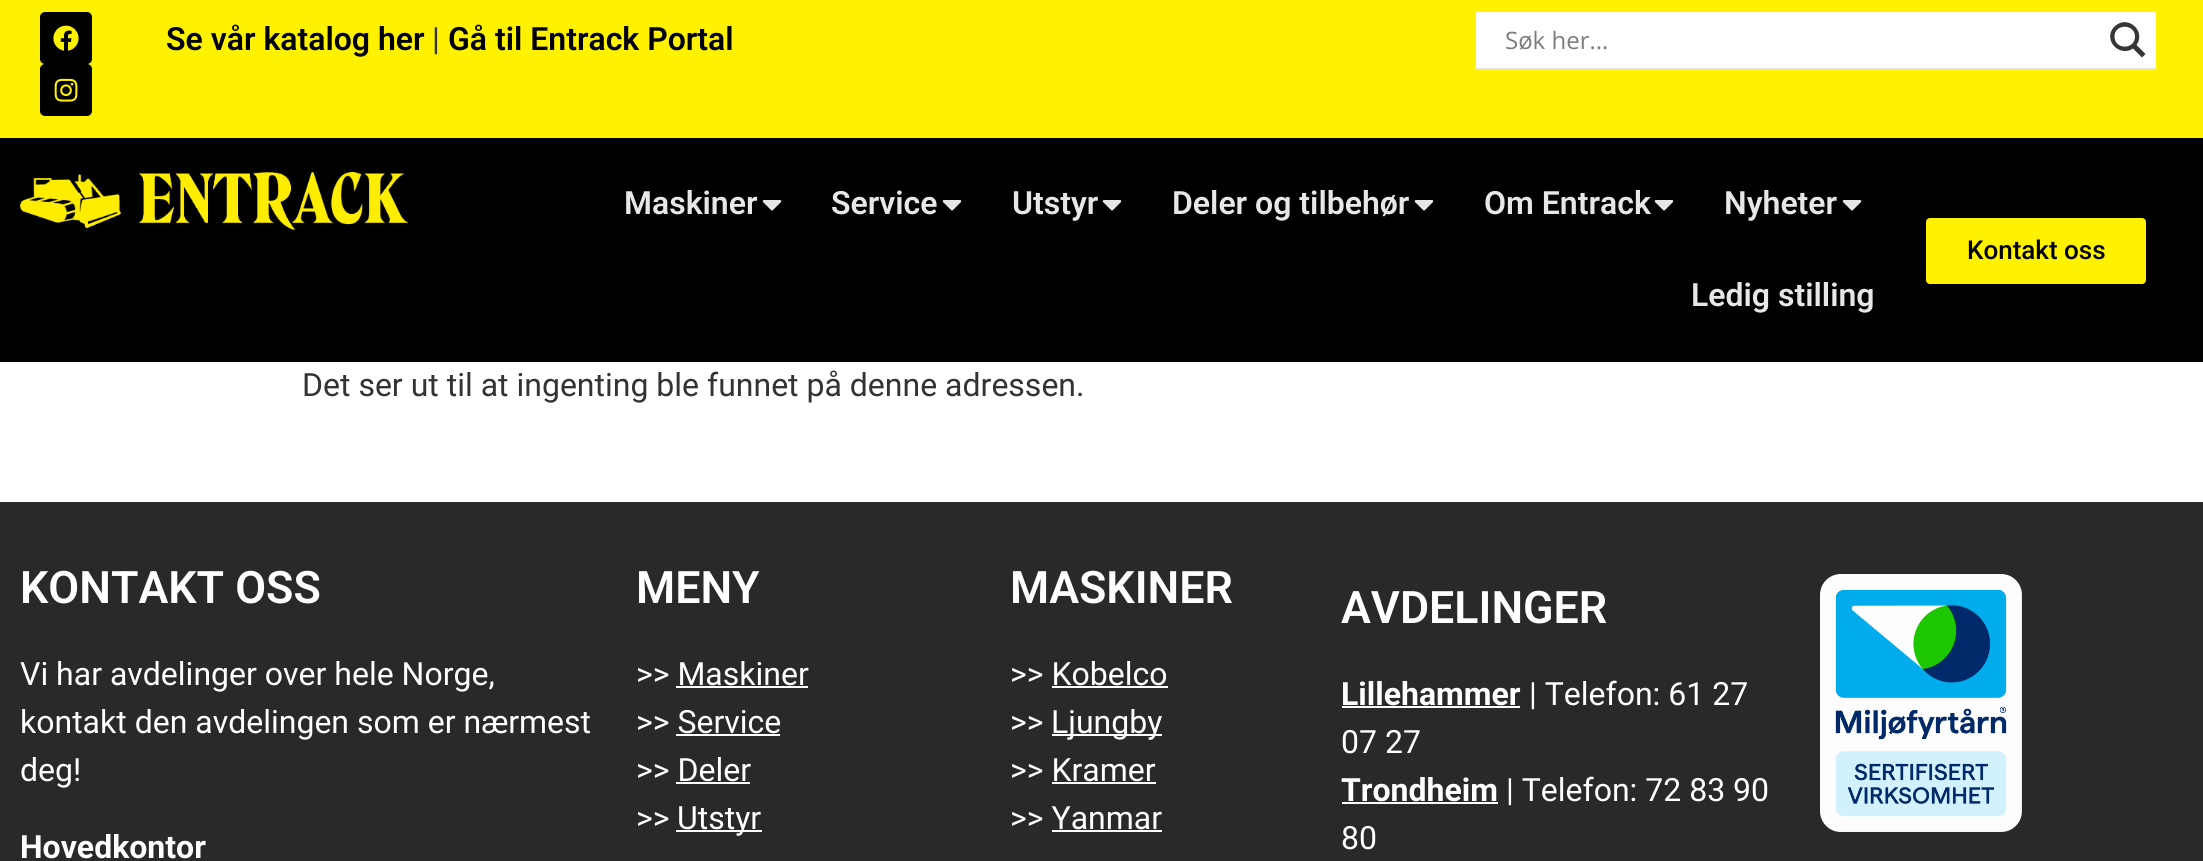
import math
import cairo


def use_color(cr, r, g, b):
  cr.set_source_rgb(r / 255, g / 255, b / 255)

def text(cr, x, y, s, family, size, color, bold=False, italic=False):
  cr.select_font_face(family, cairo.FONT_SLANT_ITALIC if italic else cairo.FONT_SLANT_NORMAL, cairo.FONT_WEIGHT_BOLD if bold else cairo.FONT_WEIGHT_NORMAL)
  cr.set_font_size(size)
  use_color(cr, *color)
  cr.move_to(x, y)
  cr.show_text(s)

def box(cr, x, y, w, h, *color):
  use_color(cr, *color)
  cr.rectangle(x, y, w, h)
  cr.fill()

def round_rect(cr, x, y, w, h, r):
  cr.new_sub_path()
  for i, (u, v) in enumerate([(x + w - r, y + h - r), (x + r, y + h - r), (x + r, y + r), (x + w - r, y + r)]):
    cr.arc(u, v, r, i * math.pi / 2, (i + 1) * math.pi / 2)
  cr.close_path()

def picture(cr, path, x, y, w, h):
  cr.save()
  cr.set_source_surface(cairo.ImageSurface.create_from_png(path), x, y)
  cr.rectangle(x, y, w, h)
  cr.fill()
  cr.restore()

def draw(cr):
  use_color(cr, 255, 255, 255)
  cr.paint()
  box(cr, 0, 0, 2203, 138, 255, 242, 0)
  use_color(cr, 0, 0, 0)
  round_rect(cr, 40, 12, 52, 52, 5)
  cr.fill()
  picture(cr, "img_01.png", 53, 25, 26, 26)
  round_rect(cr, 40, 64, 52, 52, 5)
  cr.fill()
  picture(cr, "img_02.png", 54, 78, 24, 24)
  box(cr, 1476, 68, 680, 2, 228, 228, 228)
  box(cr, 1476, 12, 680, 56, 255, 255, 255)
  use_color(cr, 54, 54, 54)
  cr.new_path()
  cr.move_to(2145.5, 54)
  cr.line_to(2136.5, 45)
  cr.curve_to(2146.5, 31, 2127.5, 14, 2114.5, 26.5)
  cr.curve_to(2102, 39, 2119, 58, 2133, 48.5)
  cr.line_to(2142, 57.5)
  cr.close_path()
  cr.move_to(2114.5, 36.5)
  cr.curve_to(2114.5, 23.5, 2135, 23.5, 2135, 36.5)
  cr.curve_to(2135, 50, 2114.5, 50, 2114.5, 36.5)
  cr.close_path()
  cr.fill()
  box(cr, 0, 138, 2203, 224, 0, 0, 0)
  picture(cr, "img_03.png", 20, 172, 388, 58)
  picture(cr, "img_04.png", 762, 200, 20, 11)
  picture(cr, "img_04.png", 942, 200, 20, 11)
  picture(cr, "img_04.png", 1102, 200, 20, 11)
  picture(cr, "img_04.png", 1414, 200, 20, 11)
  picture(cr, "img_04.png", 1654, 200, 20, 11)
  picture(cr, "img_04.png", 1842, 200, 20, 11)
  use_color(cr, 255, 242, 0)
  round_rect(cr, 1926, 218, 220, 66, 4)
  cr.fill()
  box(cr, 0, 502, 2203, 359, 41, 41, 41)
  box(cr, 676, 686, 132, 2, 255, 255, 255)
  box(cr, 676, 734, 104, 2, 255, 255, 255)
  box(cr, 676, 782, 74, 2, 255, 255, 255)
  box(cr, 676, 830, 86, 2, 255, 255, 255)
  box(cr, 1052, 686, 116, 2, 255, 255, 255)
  box(cr, 1052, 734, 110, 2, 255, 255, 255)
  box(cr, 1052, 782, 104, 2, 255, 255, 255)
  box(cr, 1052, 830, 110, 2, 255, 255, 255)
  box(cr, 1342, 706, 178, 2, 255, 255, 255)
  box(cr, 1342, 802, 156, 2, 255, 255, 255)
  picture(cr, "img_05.png", 1820, 574, 202, 258)
  text(cr, 166, 50, "Se vår katalog her", "Roboto SemiBold", 32, (0, 0, 0))
  text(cr, 432, 50, "|", "Roboto", 32, (51, 51, 51))
  text(cr, 448, 50, "Gå til Entrack Portal", "Roboto SemiBold", 32, (0, 0, 0))
  text(cr, 1505, 49, "Søk her...", "Open Sans", 24, (125, 125, 125))
  text(cr, 624, 214, "Maskiner", "Roboto SemiBold", 32, (231, 231, 231))
  text(cr, 831, 214, "Service", "Roboto SemiBold", 32, (231, 231, 231))
  text(cr, 1012, 214, "Utstyr", "Roboto SemiBold", 32, (231, 231, 231))
  text(cr, 1172, 214, "Deler og tilbehør", "Roboto SemiBold", 32, (231, 231, 231))
  text(cr, 1484, 214, "Om Entrack", "Roboto SemiBold", 32, (231, 231, 231))
  text(cr, 1724, 214, "Nyheter", "Roboto SemiBold", 32, (231, 231, 231))
  text(cr, 1691, 306, "Ledig stilling", "Roboto SemiBold", 32, (231, 231, 231))
  text(cr, 1967, 259, "Kontakt oss", "Roboto Medium", 26, (0, 0, 0))
  text(cr, 302, 396, "Det ser ut til at ingenting ble funnet på denne adressen.", "Roboto", 32, (51, 51, 51))
  text(cr, 20, 603, "KONTAKT OSS", "Roboto SemiBold", 44.75, (255, 255, 255))
  text(cr, 20, 685, "Vi har avdelinger over hele Norge,", "Roboto", 32, (255, 255, 255))
  text(cr, 20, 733, "kontakt den avdelingen som er nærmest", "Roboto", 32, (255, 255, 255))
  text(cr, 20, 781, "deg!", "Roboto", 32, (255, 255, 255))
  text(cr, 20, 858, "Hovedkontor", "Roboto", 32, (255, 255, 255), bold=True)
  text(cr, 636, 603, "MENY", "Roboto SemiBold", 44.75, (255, 255, 255))
  text(cr, 636, 685, ">> Maskiner", "Roboto", 32, (255, 255, 255))
  text(cr, 636, 733, ">> Service", "Roboto", 32, (255, 255, 255))
  text(cr, 636, 781, ">> Deler", "Roboto", 32, (255, 255, 255))
  text(cr, 636, 829, ">>", "Roboto", 32, (255, 255, 255))
  text(cr, 677, 829, "Utstyr", "Roboto", 32, (255, 255, 255))
  text(cr, 1010, 603, "MASKINER", "Roboto SemiBold", 44.75, (255, 255, 255))
  text(cr, 1010, 685, ">> Kobelco", "Roboto", 32, (255, 255, 255))
  text(cr, 1010, 733, ">>", "Roboto", 32, (255, 255, 255))
  text(cr, 1051, 733, "Ljungby", "Roboto", 32, (255, 255, 255))
  text(cr, 1010, 781, ">> Kramer", "Roboto", 32, (255, 255, 255))
  text(cr, 1010, 829, ">> Yanmar", "Roboto", 32, (255, 255, 255))
  text(cr, 1341, 623, "AVDELINGER", "Roboto SemiBold", 44.75, (255, 255, 255))
  text(cr, 1341, 705, "Lillehammer", "Roboto", 32, (255, 255, 255), bold=True)
  text(cr, 1529, 705, "| Telefon: 61 27", "Roboto", 32, (255, 255, 255))
  text(cr, 1341, 753, "07 27", "Roboto", 32, (255, 255, 255))
  text(cr, 1341, 801, "Trondheim", "Roboto", 32, (255, 255, 255), bold=True)
  text(cr, 1506, 801, "| Telefon: 72 83 90", "Roboto", 32, (255, 255, 255))
  text(cr, 1341, 849, "80", "Roboto", 32, (255, 255, 255))


surface = cairo.ImageSurface(cairo.FORMAT_RGB24, 2203, 861)
cr = cairo.Context(surface)
options = cairo.FontOptions()
options.set_hint_metrics(cairo.HINT_METRICS_OFF)
options.set_hint_style(cairo.HINT_STYLE_NONE)
cr.set_font_options(options)
cr.set_miter_limit(4)
draw(cr)
surface.write_to_png("out.png")
